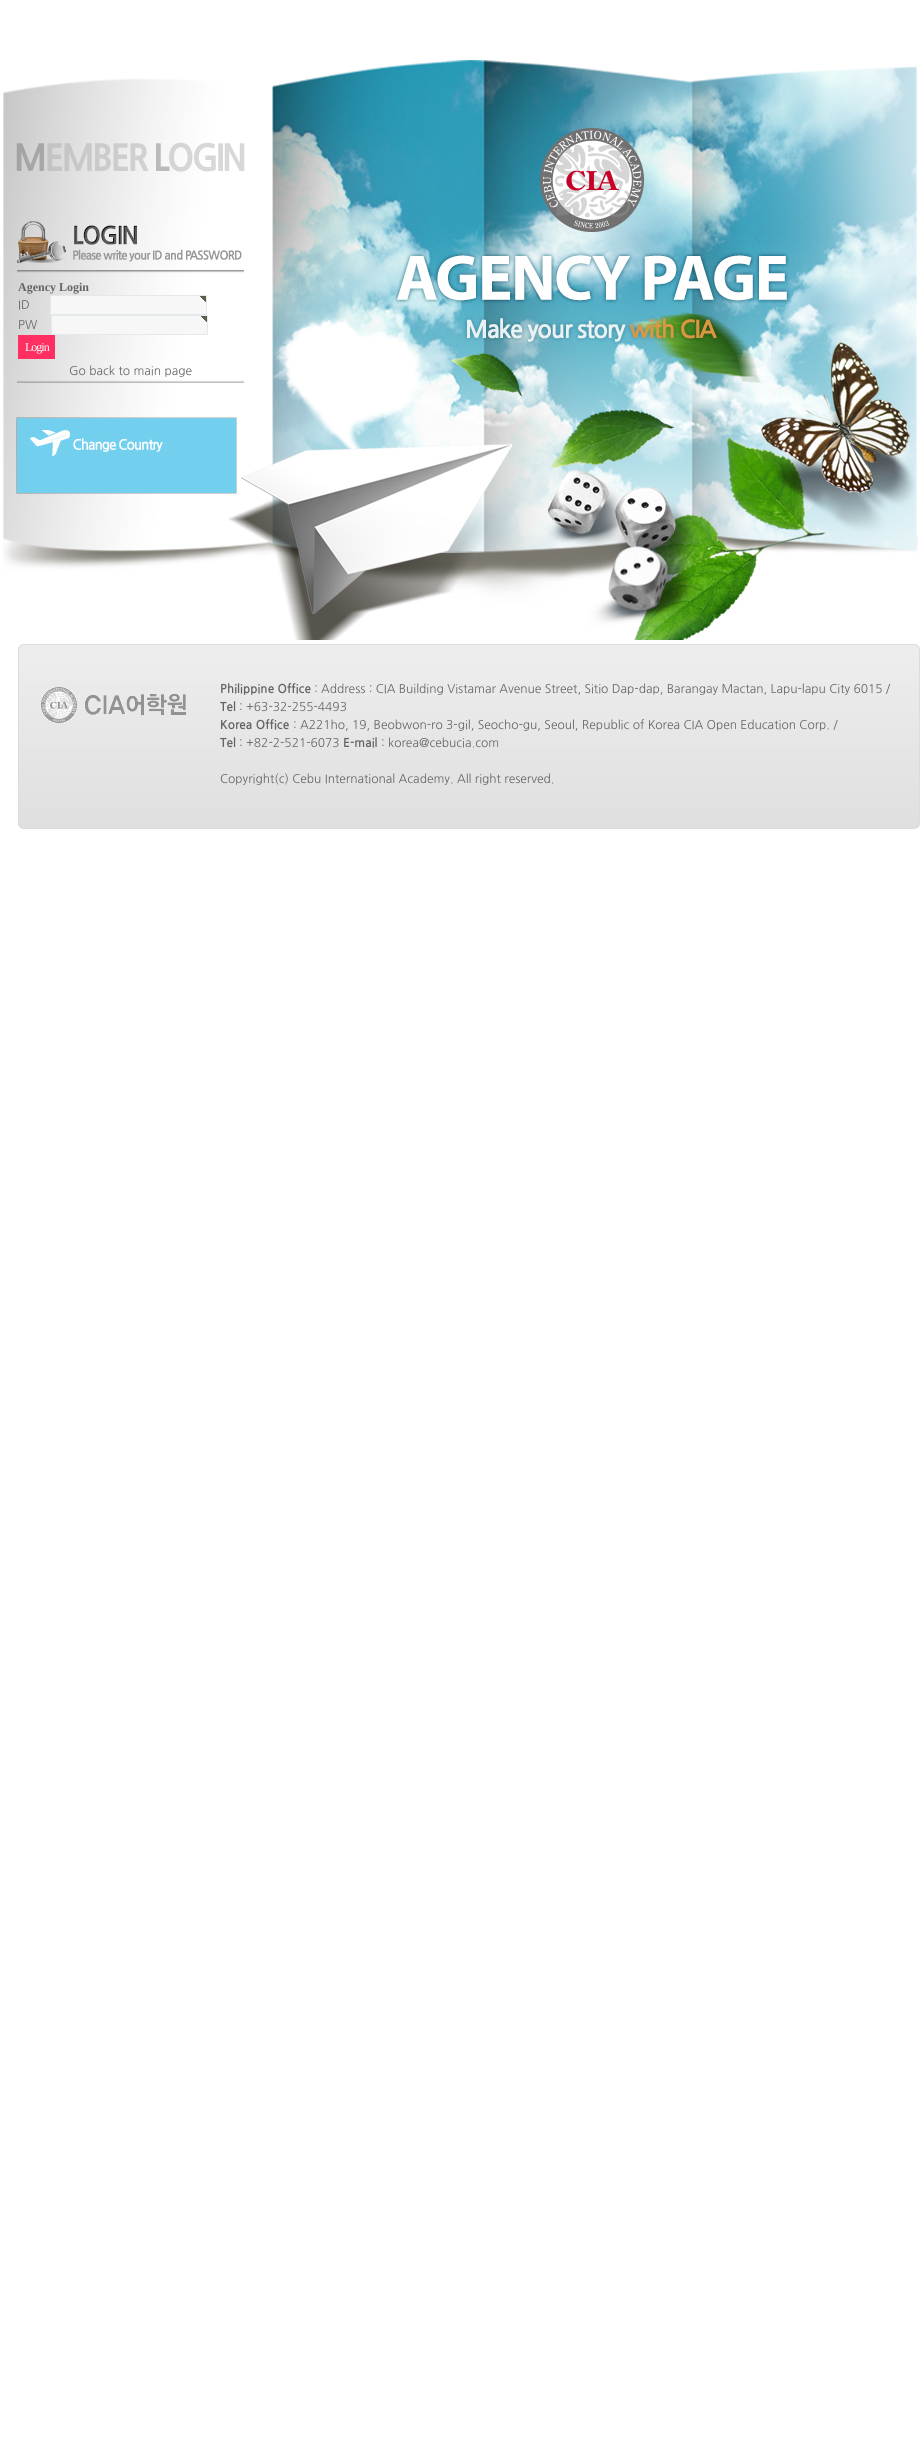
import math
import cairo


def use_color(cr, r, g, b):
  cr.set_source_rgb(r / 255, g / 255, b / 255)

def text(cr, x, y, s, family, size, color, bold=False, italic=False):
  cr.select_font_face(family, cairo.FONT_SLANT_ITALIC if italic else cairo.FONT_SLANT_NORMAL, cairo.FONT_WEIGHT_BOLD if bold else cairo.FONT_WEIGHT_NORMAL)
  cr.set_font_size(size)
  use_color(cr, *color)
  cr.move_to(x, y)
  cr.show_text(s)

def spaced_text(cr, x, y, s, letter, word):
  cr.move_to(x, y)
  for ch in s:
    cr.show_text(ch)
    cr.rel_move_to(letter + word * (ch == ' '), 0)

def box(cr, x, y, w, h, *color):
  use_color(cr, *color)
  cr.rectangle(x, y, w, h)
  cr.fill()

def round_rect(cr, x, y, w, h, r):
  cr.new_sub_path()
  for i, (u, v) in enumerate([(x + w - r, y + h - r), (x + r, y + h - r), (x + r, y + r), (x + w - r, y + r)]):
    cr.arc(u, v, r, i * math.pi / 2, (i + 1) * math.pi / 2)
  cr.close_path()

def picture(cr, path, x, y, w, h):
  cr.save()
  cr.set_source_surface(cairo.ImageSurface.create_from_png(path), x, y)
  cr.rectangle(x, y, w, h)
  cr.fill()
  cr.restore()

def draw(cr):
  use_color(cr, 255, 255, 255)
  cr.paint()
  picture(cr, "img_01.png", 3, 60, 915, 580)
  box(cr, 51, 296, 155, 18, 247, 247, 247)
  picture(cr, "img_02.png", 200, 296, 6, 6)
  cr.rectangle(50.5, 295.5, 156, 19)
  use_color(cr, 228, 234, 236)
  cr.set_line_width(1)
  cr.stroke()
  box(cr, 52, 316, 155, 18, 247, 247, 247)
  picture(cr, "img_02.png", 201, 316, 6, 6)
  cr.rectangle(51.5, 315.5, 156, 19)
  use_color(cr, 228, 234, 236)
  cr.stroke()
  box(cr, 18, 335, 37, 24, 255, 48, 97)
  cr.save()
  round_rect(cr, 18, 644, 902, 185, 6)
  cr.clip()
  gradient = cairo.LinearGradient(19, 645, 19, 828)
  gradient.add_color_stop_rgba(0.05, 0.929, 0.929, 0.929, 1)
  gradient.add_color_stop_rgba(1, 0.875, 0.875, 0.875, 1)
  cr.set_source(gradient)
  cr.rectangle(18, 645, 902, 183)
  cr.fill()
  cr.restore()
  round_rect(cr, 18.5, 644.5, 901, 184, 5.5)
  use_color(cr, 220, 220, 220)
  cr.stroke()
  picture(cr, "img_03.png", 41, 687, 146, 36)
  text(cr, 18, 291, "Agency Login", "Liberation Serif", 12, (100, 100, 100), bold=True)
  text(cr, 18, 309, "ID", "NanumGothic", 12, (100, 100, 100))
  text(cr, 18, 329, "PW", "NanumGothic", 12, (100, 100, 100))
  cr.select_font_face("Liberation Serif")
  use_color(cr, 255, 255, 255)
  spaced_text(cr, 25, 351, "Login", -1, 0)
  text(cr, 69, 375, "Go back to main page", "NanumGothic", 12, (100, 100, 100))
  text(cr, 220, 693, "Philippine Office", "NanumGothic", 12, (100, 100, 100), bold=True)
  text(cr, 314, 693, ": Address : CIA Building Vistamar Avenue Street, Sitio Dap-dap, Barangay Mactan, Lapu-lapu City 6015 /", "NanumGothic", 12, (100, 100, 100))
  text(cr, 220, 711, "Tel", "NanumGothic", 12, (100, 100, 100), bold=True)
  text(cr, 239, 711, ": +63-32-255-4493", "NanumGothic", 12, (100, 100, 100))
  text(cr, 220, 729, "Korea Office", "NanumGothic", 12, (100, 100, 100), bold=True)
  text(cr, 293, 729, ": A221ho, 19, Beobwon-ro 3-gil, Seocho-gu, Seoul, Republic of Korea CIA Open Education Corp. /", "NanumGothic", 12, (100, 100, 100))
  text(cr, 220, 747, "Tel", "NanumGothic", 12, (100, 100, 100), bold=True)
  text(cr, 239, 747, ": +82-2-521-6073", "NanumGothic", 12, (100, 100, 100))
  text(cr, 343, 747, "E-mail", "NanumGothic", 12, (100, 100, 100), bold=True)
  text(cr, 381, 747, ": korea@cebucia.com", "NanumGothic", 12, (100, 100, 100))
  text(cr, 220, 783, "Copyright(c) Cebu International Academy. All right reserved.", "NanumGothic", 12, (100, 100, 100))


surface = cairo.ImageSurface(cairo.FORMAT_RGB24, 921, 2438)
cr = cairo.Context(surface)
options = cairo.FontOptions()
options.set_hint_metrics(cairo.HINT_METRICS_OFF)
options.set_hint_style(cairo.HINT_STYLE_NONE)
cr.set_font_options(options)
cr.set_miter_limit(4)
draw(cr)
surface.write_to_png("out.png")
